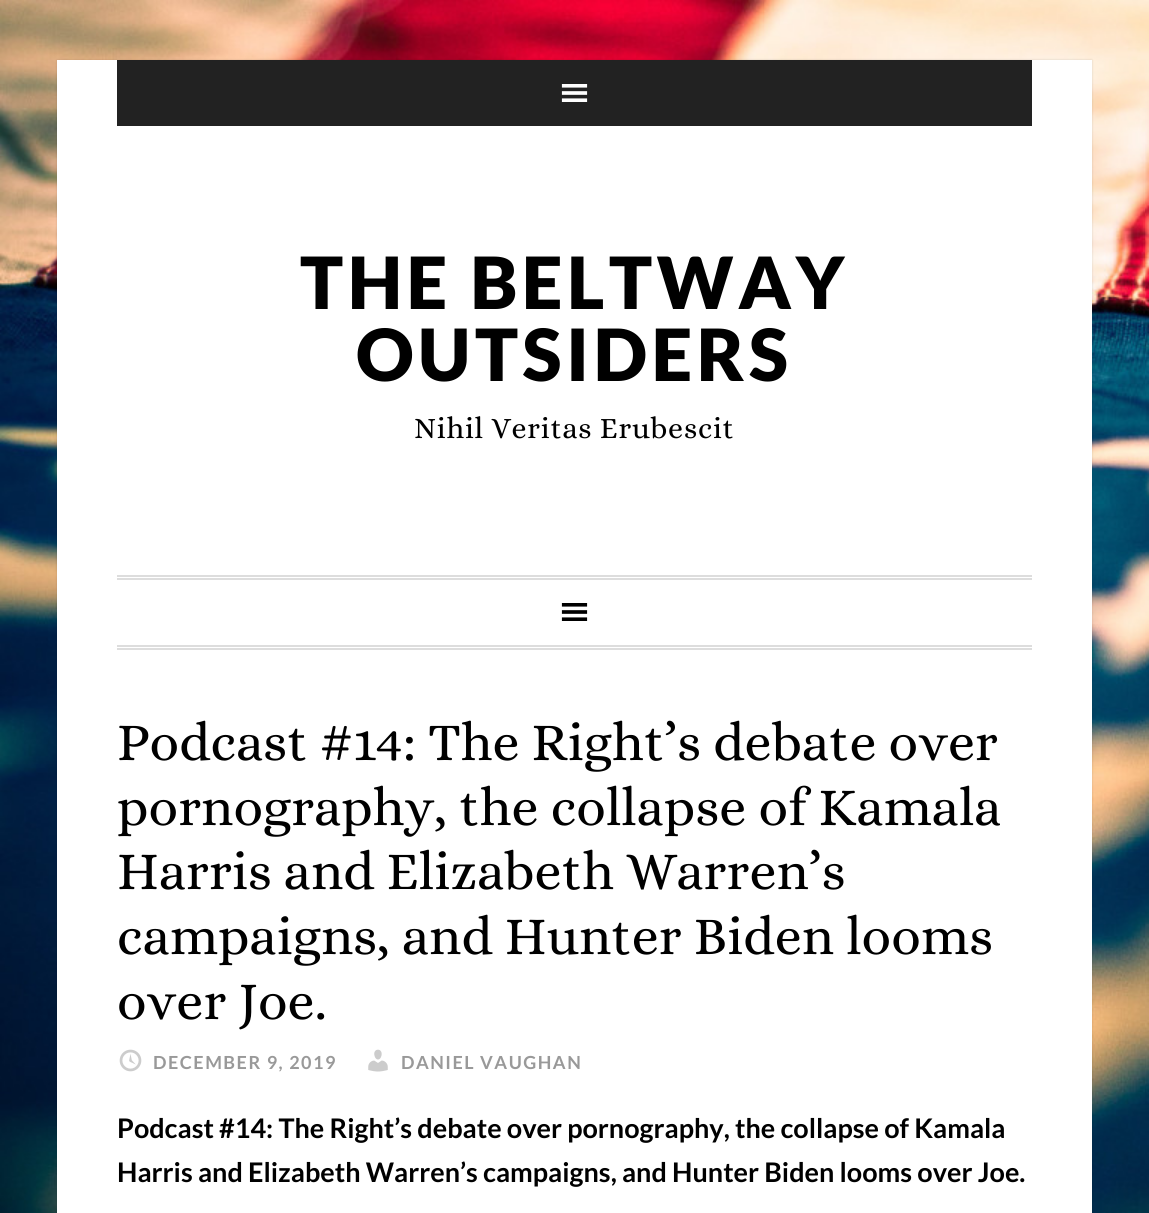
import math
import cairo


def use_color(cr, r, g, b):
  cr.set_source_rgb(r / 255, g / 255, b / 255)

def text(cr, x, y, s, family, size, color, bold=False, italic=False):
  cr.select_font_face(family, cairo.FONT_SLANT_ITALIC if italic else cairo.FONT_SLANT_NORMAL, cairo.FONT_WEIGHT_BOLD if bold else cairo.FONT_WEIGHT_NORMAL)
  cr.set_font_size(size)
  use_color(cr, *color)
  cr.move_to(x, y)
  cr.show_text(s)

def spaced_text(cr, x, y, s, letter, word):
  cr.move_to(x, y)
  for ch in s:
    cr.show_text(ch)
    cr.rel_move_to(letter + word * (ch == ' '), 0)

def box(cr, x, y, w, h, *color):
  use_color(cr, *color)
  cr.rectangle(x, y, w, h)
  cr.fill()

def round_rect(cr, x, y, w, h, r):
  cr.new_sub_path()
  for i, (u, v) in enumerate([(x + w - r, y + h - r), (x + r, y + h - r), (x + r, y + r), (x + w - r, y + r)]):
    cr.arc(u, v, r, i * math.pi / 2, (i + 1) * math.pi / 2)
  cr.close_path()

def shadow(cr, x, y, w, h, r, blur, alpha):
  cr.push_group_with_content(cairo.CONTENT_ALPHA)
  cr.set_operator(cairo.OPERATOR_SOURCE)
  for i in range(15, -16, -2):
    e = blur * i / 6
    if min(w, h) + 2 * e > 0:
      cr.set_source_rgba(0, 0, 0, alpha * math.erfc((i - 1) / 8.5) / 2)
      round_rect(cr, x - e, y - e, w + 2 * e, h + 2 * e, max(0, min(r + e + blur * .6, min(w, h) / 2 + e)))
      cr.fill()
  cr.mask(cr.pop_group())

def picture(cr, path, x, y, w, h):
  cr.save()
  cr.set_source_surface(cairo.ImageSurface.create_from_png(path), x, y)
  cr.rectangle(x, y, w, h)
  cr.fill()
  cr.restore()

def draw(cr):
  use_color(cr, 255, 255, 255)
  cr.paint()
  picture(cr, "img_01.png", 0, 0, 1149, 1213)
  use_color(cr, 0, 0, 0)
  shadow(cr, 57, 60, 1035, 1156, 0, 1, 0.15)
  box(cr, 57, 60, 1035, 1153, 255, 255, 255)
  box(cr, 117, 60, 915, 66, 34, 34, 34)
  picture(cr, "img_02.png", 561, 84, 27, 18)
  box(cr, 117, 575, 915, 2, 221, 221, 221)
  box(cr, 117, 578, 915, 2, 221, 221, 221)
  box(cr, 117, 645, 915, 2, 221, 221, 221)
  box(cr, 117, 648, 915, 2, 221, 221, 221)
  picture(cr, "img_03.png", 561, 603, 27, 18)
  picture(cr, "img_04.png", 119, 1049, 23, 23)
  picture(cr, "img_05.png", 368, 1049, 20, 23)
  cr.select_font_face("Lato Black")
  cr.set_font_size(72)
  use_color(cr, 0, 0, 0)
  spaced_text(cr, 300, 309, "THE BELTWAY", 4.5, 0)
  spaced_text(cr, 356, 381, "OUTSIDERS", 4.5, 0)
  cr.select_font_face("Alice")
  cr.set_font_size(30)
  spaced_text(cr, 414, 438, "Nihil Veritas Erubescit", 0.75, 0)
  text(cr, 117, 760, "Podcast #14: The Right’s debate over", "Alice", 54, (0, 0, 0))
  text(cr, 117, 825, "pornography, the collapse of Kamala", "Alice", 54, (0, 0, 0))
  text(cr, 117, 889, "Harris and Elizabeth Warren’s", "Alice", 54, (0, 0, 0))
  text(cr, 117, 954, "campaigns, and Hunter Biden looms", "Alice", 54, (0, 0, 0))
  text(cr, 117, 1019, "over Joe.", "Alice", 54, (0, 0, 0))
  cr.select_font_face("Lato", cairo.FONT_SLANT_NORMAL, cairo.FONT_WEIGHT_BOLD)
  cr.set_font_size(18)
  use_color(cr, 153, 153, 153)
  spaced_text(cr, 153, 1069, "DECEMBER 9, 2019", 1.5, 0)
  spaced_text(cr, 401, 1069, "DANIEL VAUGHAN", 1.5, 0)
  text(cr, 117, 1138, "Podcast #14: The Right’s debate over pornography, the collapse of Kamala", "Lato", 27, (0, 0, 0), bold=True)
  text(cr, 117, 1182, "Harris and Elizabeth Warren’s campaigns, and Hunter Biden looms over Joe.", "Lato", 27, (0, 0, 0), bold=True)


surface = cairo.ImageSurface(cairo.FORMAT_RGB24, 1149, 1213)
cr = cairo.Context(surface)
options = cairo.FontOptions()
options.set_hint_metrics(cairo.HINT_METRICS_OFF)
options.set_hint_style(cairo.HINT_STYLE_NONE)
cr.set_font_options(options)
cr.set_miter_limit(4)
draw(cr)
surface.write_to_png("out.png")
